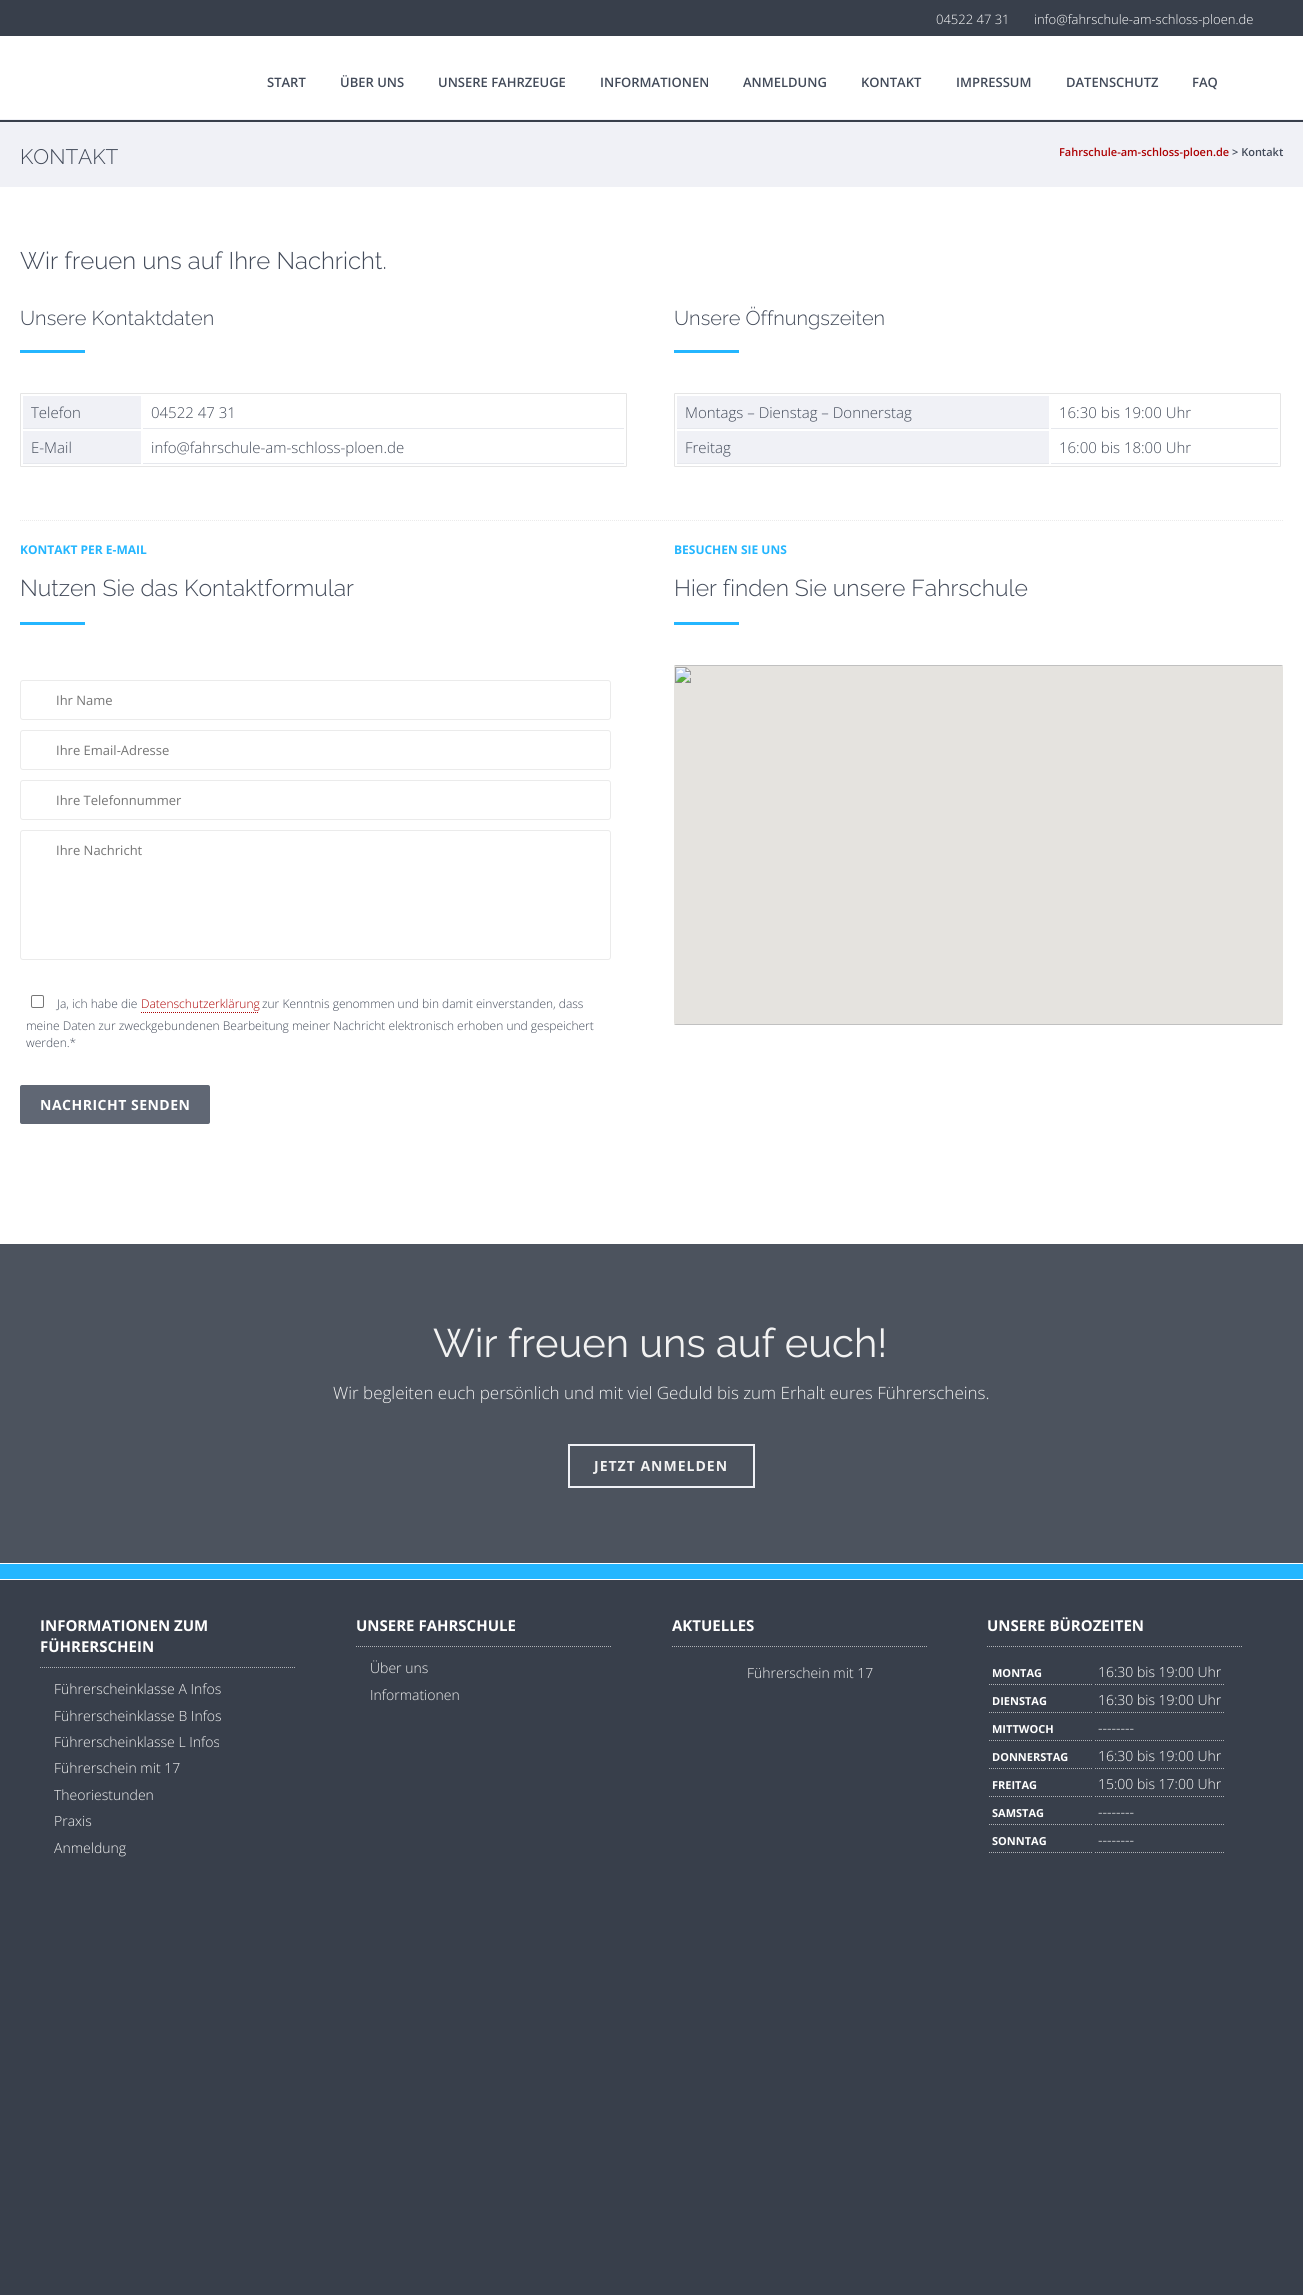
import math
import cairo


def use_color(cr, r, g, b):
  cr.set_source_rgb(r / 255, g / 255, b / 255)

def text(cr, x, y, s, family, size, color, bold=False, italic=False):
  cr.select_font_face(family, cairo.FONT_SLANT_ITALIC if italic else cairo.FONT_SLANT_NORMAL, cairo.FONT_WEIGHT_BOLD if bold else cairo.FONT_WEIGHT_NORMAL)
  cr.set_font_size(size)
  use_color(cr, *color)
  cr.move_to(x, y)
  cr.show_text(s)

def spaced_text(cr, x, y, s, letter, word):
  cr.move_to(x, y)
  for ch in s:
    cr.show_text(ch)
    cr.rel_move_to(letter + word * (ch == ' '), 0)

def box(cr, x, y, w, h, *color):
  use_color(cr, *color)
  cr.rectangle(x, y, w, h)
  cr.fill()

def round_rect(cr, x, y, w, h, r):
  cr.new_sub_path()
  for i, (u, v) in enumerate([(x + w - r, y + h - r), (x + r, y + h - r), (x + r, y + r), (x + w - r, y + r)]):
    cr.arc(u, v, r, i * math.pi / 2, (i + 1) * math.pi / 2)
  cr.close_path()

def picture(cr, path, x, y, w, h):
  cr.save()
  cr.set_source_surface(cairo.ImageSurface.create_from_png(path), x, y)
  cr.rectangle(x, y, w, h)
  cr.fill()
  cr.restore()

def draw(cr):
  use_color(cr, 255, 255, 255)
  cr.paint()
  box(cr, 0, 119, 1303, 1, 240, 241, 246)
  box(cr, 0, 0, 1303, 36, 56, 63, 75)
  box(cr, 0, 120, 1303, 2, 56, 63, 75)
  box(cr, 0, 122, 1303, 65, 240, 241, 246)
  box(cr, 20, 350, 65, 3, 36, 182, 255)
  round_rect(cr, 20.5, 393.5, 606, 73, 0.5)
  use_color(cr, 229, 229, 229)
  cr.set_line_width(1)
  cr.stroke()
  box(cr, 23, 396, 118, 32, 240, 241, 246)
  box(cr, 23, 428, 118, 1, 230, 232, 237)
  box(cr, 143, 428, 481, 1, 230, 232, 237)
  box(cr, 23, 431, 118, 32, 240, 241, 246)
  box(cr, 23, 463, 118, 1, 230, 232, 237)
  box(cr, 143, 463, 481, 1, 230, 232, 237)
  box(cr, 674, 350, 65, 3, 36, 182, 255)
  round_rect(cr, 674.5, 393.5, 606, 73, 0.5)
  use_color(cr, 229, 229, 229)
  cr.stroke()
  box(cr, 677, 396, 372, 32, 240, 241, 246)
  box(cr, 677, 428, 372, 1, 230, 232, 237)
  box(cr, 1051, 428, 227, 1, 230, 232, 237)
  box(cr, 677, 431, 372, 32, 240, 241, 246)
  box(cr, 677, 463, 372, 1, 230, 232, 237)
  box(cr, 1051, 463, 227, 1, 230, 232, 237)
  cr.new_path()
  cr.move_to(20, 520.5)
  cr.line_to(1283, 520.5)
  use_color(cr, 235, 235, 235)
  cr.set_dash([1, 1])
  cr.stroke()
  box(cr, 20, 622, 65, 3, 36, 182, 255)
  round_rect(cr, 20.5, 680.5, 590, 39, 2.5)
  use_color(cr, 235, 235, 235)
  cr.set_dash([])
  cr.stroke()
  round_rect(cr, 20.5, 730.5, 590, 39, 2.5)
  cr.stroke()
  round_rect(cr, 20.5, 780.5, 590, 39, 2.5)
  cr.stroke()
  round_rect(cr, 20.5, 830.5, 590, 129, 2.5)
  cr.stroke()
  round_rect(cr, 31.5, 995.5, 12, 12, 1.5)
  use_color(cr, 118, 118, 118)
  cr.stroke()
  cr.new_path()
  cr.move_to(141, 1012.5)
  cr.line_to(259, 1012.5)
  use_color(cr, 173, 2, 3)
  cr.set_dash([1, 1])
  cr.stroke()
  use_color(cr, 96, 103, 116)
  round_rect(cr, 20, 1085, 190, 39, 2)
  cr.fill()
  box(cr, 674, 622, 65, 3, 36, 182, 255)
  picture(cr, "img_01.png", 674, 665, 609, 360)
  box(cr, 0, 1244, 1303, 319, 76, 83, 94)
  cr.rectangle(569, 1445, 185, 42)
  use_color(cr, 240, 241, 246)
  cr.set_line_width(2)
  cr.set_dash([])
  cr.stroke()
  box(cr, 0, 1564, 1303, 15, 36, 182, 255)
  box(cr, 0, 1580, 1303, 715, 56, 63, 75)
  cr.new_path()
  cr.move_to(40, 1667.5)
  cr.line_to(296, 1667.5)
  use_color(cr, 175, 178, 183)
  cr.set_line_width(1)
  cr.set_dash([1, 1])
  cr.stroke()
  cr.new_path()
  cr.move_to(356, 1646.5)
  cr.line_to(612, 1646.5)
  cr.stroke()
  cr.new_path()
  cr.move_to(672, 1646.5)
  cr.line_to(927, 1646.5)
  cr.stroke()
  cr.new_path()
  cr.move_to(987, 1646.5)
  cr.line_to(1243, 1646.5)
  cr.stroke()
  cr.new_path()
  cr.move_to(989, 1684.5)
  cr.line_to(1093, 1684.5)
  cr.stroke()
  cr.new_path()
  cr.move_to(1095, 1684.5)
  cr.line_to(1225, 1684.5)
  cr.stroke()
  cr.new_path()
  cr.move_to(989, 1712.5)
  cr.line_to(1093, 1712.5)
  cr.stroke()
  cr.new_path()
  cr.move_to(1095, 1712.5)
  cr.line_to(1225, 1712.5)
  cr.stroke()
  cr.new_path()
  cr.move_to(989, 1740.5)
  cr.line_to(1093, 1740.5)
  cr.stroke()
  cr.new_path()
  cr.move_to(1095, 1740.5)
  cr.line_to(1225, 1740.5)
  cr.stroke()
  cr.new_path()
  cr.move_to(989, 1768.5)
  cr.line_to(1093, 1768.5)
  cr.stroke()
  cr.new_path()
  cr.move_to(1095, 1768.5)
  cr.line_to(1225, 1768.5)
  cr.stroke()
  cr.new_path()
  cr.move_to(989, 1796.5)
  cr.line_to(1093, 1796.5)
  cr.stroke()
  cr.new_path()
  cr.move_to(1095, 1796.5)
  cr.line_to(1225, 1796.5)
  cr.stroke()
  cr.new_path()
  cr.move_to(989, 1824.5)
  cr.line_to(1093, 1824.5)
  cr.stroke()
  cr.new_path()
  cr.move_to(1095, 1824.5)
  cr.line_to(1225, 1824.5)
  cr.stroke()
  cr.new_path()
  cr.move_to(989, 1852.5)
  cr.line_to(1093, 1852.5)
  cr.stroke()
  cr.new_path()
  cr.move_to(1095, 1852.5)
  cr.line_to(1225, 1852.5)
  cr.stroke()
  text(cr, 936, 24, "04522 47 31", "Open Sans Light", 13, (255, 255, 255))
  text(cr, 1034, 24, "info@fahrschule-am-schloss-ploen.de", "Open Sans Light", 13, (255, 255, 255))
  text(cr, 267, 87, "START", "Open Sans SemiBold", 13, (66, 74, 89))
  text(cr, 340, 87, "ÜBER UNS", "Open Sans SemiBold", 13, (66, 74, 89))
  text(cr, 438, 87, "UNSERE FAHRZEUGE", "Open Sans SemiBold", 13, (66, 74, 89))
  text(cr, 600, 87, "INFORMATIONEN", "Open Sans SemiBold", 13, (66, 74, 89))
  text(cr, 743, 87, "ANMELDUNG", "Open Sans SemiBold", 13, (66, 74, 89))
  text(cr, 861, 87, "KONTAKT", "Open Sans SemiBold", 13, (66, 74, 89))
  text(cr, 956, 87, "IMPRESSUM", "Open Sans SemiBold", 13, (66, 74, 89))
  text(cr, 1066, 87, "DATENSCHUTZ", "Open Sans SemiBold", 13, (66, 74, 89))
  text(cr, 1192, 87, "FAQ", "Open Sans SemiBold", 13, (66, 74, 89))
  text(cr, 20, 164, "KONTAKT", "Raleway Light", 21, (66, 74, 89))
  text(cr, 1059, 156, "Fahrschule-am-schloss-ploen.de", "Open Sans SemiBold", 11, (173, 2, 3))
  text(cr, 1232, 156, "> Kontakt", "Open Sans SemiBold", 11, (66, 74, 89))
  text(cr, 20, 269, "Wir freuen uns auf Ihre Nachricht.", "Raleway Light", 24, (66, 74, 89))
  text(cr, 20, 325, "Unsere Kontaktdaten", "Raleway Light", 20, (66, 74, 89))
  text(cr, 31, 418, "Telefon", "Open Sans Light", 15, (66, 74, 89))
  text(cr, 151, 418, "04522 47 31", "Open Sans Light", 15, (66, 74, 89))
  text(cr, 31, 453, "E-Mail", "Open Sans Light", 15, (66, 74, 89))
  text(cr, 151, 453, "info@fahrschule-am-schloss-ploen.de", "Open Sans Light", 15, (66, 74, 89))
  text(cr, 674, 325, "Unsere Öffnungszeiten", "Raleway Light", 20, (66, 74, 89))
  text(cr, 685, 418, "Montags – Dienstag – Donnerstag", "Open Sans Light", 15, (66, 74, 89))
  text(cr, 1059, 418, "16:30 bis 19:00 Uhr", "Open Sans Light", 15, (66, 74, 89))
  text(cr, 685, 453, "Freitag", "Open Sans Light", 15, (66, 74, 89))
  text(cr, 1059, 453, "16:00 bis 18:00 Uhr", "Open Sans Light", 15, (66, 74, 89))
  text(cr, 20, 554, "KONTAKT PER E-MAIL", "Open Sans", 12, (36, 182, 255), bold=True)
  text(cr, 20, 596, "Nutzen Sie das Kontaktformular", "Raleway Light", 23, (66, 74, 89))
  text(cr, 56, 705, "Ihr Name", "Open Sans", 13, (117, 117, 117))
  text(cr, 56, 755, "Ihre Email-Adresse", "Open Sans", 13, (117, 117, 117))
  text(cr, 56, 805, "Ihre Telefonnummer", "Open Sans", 13, (117, 117, 117))
  text(cr, 56, 855, "Ihre Nachricht", "Open Sans", 13, (117, 117, 117))
  text(cr, 57, 1008, "Ja, ich habe die", "Open Sans Light", 12, (66, 74, 89))
  text(cr, 141, 1008, "Datenschutzerklärung", "Open Sans Light", 12, (173, 2, 3))
  text(cr, 262, 1008, "zur Kenntnis genommen und bin damit einverstanden, dass", "Open Sans Light", 12, (66, 74, 89))
  text(cr, 26, 1030, "meine Daten zur zweckgebundenen Bearbeitung meiner Nachricht elektronisch erhoben und gespeichert", "Open Sans Light", 12, (66, 74, 89))
  text(cr, 26, 1047, "werden.*", "Open Sans Light", 12, (66, 74, 89))
  cr.select_font_face("Open Sans", cairo.FONT_SLANT_NORMAL, cairo.FONT_WEIGHT_BOLD)
  cr.set_font_size(14)
  use_color(cr, 255, 255, 255)
  spaced_text(cr, 40, 1110, "NACHRICHT SENDEN", 0.5, 0)
  text(cr, 674, 554, "BESUCHEN SIE UNS", "Open Sans", 12, (36, 182, 255), bold=True)
  text(cr, 674, 596, "Hier finden Sie unsere Fahrschule", "Raleway Light", 23, (66, 74, 89))
  text(cr, 433, 1357, "Wir freuen uns auf euch!", "Raleway", 40, (242, 242, 242))
  text(cr, 333, 1399, "Wir begleiten euch persönlich und mit viel Geduld bis zum Erhalt eures Führerscheins.", "Open Sans Light", 17, (242, 242, 242))
  cr.select_font_face("Open Sans", cairo.FONT_SLANT_NORMAL, cairo.FONT_WEIGHT_BOLD)
  cr.set_font_size(14)
  spaced_text(cr, 594, 1471, "JETZT ANMELDEN", 1, 0)
  text(cr, 40, 1631, "INFORMATIONEN ZUM", "Open Sans", 15, (255, 255, 255), bold=True)
  text(cr, 40, 1652, "FÜHRERSCHEIN", "Open Sans", 15, (255, 255, 255), bold=True)
  text(cr, 54, 1694, "Führerscheinklasse A Infos", "Open Sans Light", 14, (242, 242, 242))
  text(cr, 54, 1721, "Führerscheinklasse B Infos", "Open Sans Light", 14, (242, 242, 242))
  text(cr, 54, 1747, "Führerscheinklasse L Infos", "Open Sans Light", 14, (242, 242, 242))
  text(cr, 54, 1773, "Führerschein mit 17", "Open Sans Light", 14, (242, 242, 242))
  text(cr, 54, 1800, "Theoriestunden", "Open Sans Light", 14, (242, 242, 242))
  text(cr, 54, 1826, "Praxis", "Open Sans Light", 14, (242, 242, 242))
  text(cr, 54, 1853, "Anmeldung", "Open Sans Light", 14, (242, 242, 242))
  text(cr, 356, 1631, "UNSERE FAHRSCHULE", "Open Sans", 15, (255, 255, 255), bold=True)
  text(cr, 370, 1673, "Über uns", "Open Sans Light", 14, (242, 242, 242))
  text(cr, 370, 1700, "Informationen", "Open Sans Light", 14, (242, 242, 242))
  text(cr, 672, 1631, "AKTUELLES", "Open Sans", 15, (255, 255, 255), bold=True)
  text(cr, 747, 1678, "Führerschein mit 17", "Open Sans Light", 14, (242, 242, 242))
  text(cr, 987, 1631, "UNSERE BÜROZEITEN", "Open Sans", 15, (255, 255, 255), bold=True)
  text(cr, 992, 1677, "MONTAG", "Open Sans", 11, (255, 255, 255), bold=True)
  text(cr, 1098, 1677, "16:30 bis 19:00 Uhr", "Open Sans Light", 14, (255, 255, 255))
  text(cr, 992, 1705, "DIENSTAG", "Open Sans", 11, (255, 255, 255), bold=True)
  text(cr, 1098, 1705, "16:30 bis 19:00 Uhr", "Open Sans Light", 14, (255, 255, 255))
  text(cr, 992, 1733, "MITTWOCH", "Open Sans", 11, (255, 255, 255), bold=True)
  text(cr, 1098, 1733, "--------", "Open Sans Light", 14, (255, 255, 255))
  text(cr, 992, 1761, "DONNERSTAG", "Open Sans", 11, (255, 255, 255), bold=True)
  text(cr, 1098, 1761, "16:30 bis 19:00 Uhr", "Open Sans Light", 14, (255, 255, 255))
  text(cr, 992, 1789, "FREITAG", "Open Sans", 11, (255, 255, 255), bold=True)
  text(cr, 1098, 1789, "15:00 bis 17:00 Uhr", "Open Sans Light", 14, (255, 255, 255))
  text(cr, 992, 1817, "SAMSTAG", "Open Sans", 11, (255, 255, 255), bold=True)
  text(cr, 1098, 1817, "--------", "Open Sans Light", 14, (255, 255, 255))
  text(cr, 992, 1845, "SONNTAG", "Open Sans", 11, (255, 255, 255), bold=True)
  text(cr, 1098, 1845, "--------", "Open Sans Light", 14, (255, 255, 255))


surface = cairo.ImageSurface(cairo.FORMAT_RGB24, 1303, 2295)
cr = cairo.Context(surface)
options = cairo.FontOptions()
options.set_hint_metrics(cairo.HINT_METRICS_OFF)
options.set_hint_style(cairo.HINT_STYLE_NONE)
cr.set_font_options(options)
cr.set_miter_limit(4)
draw(cr)
surface.write_to_png("out.png")
